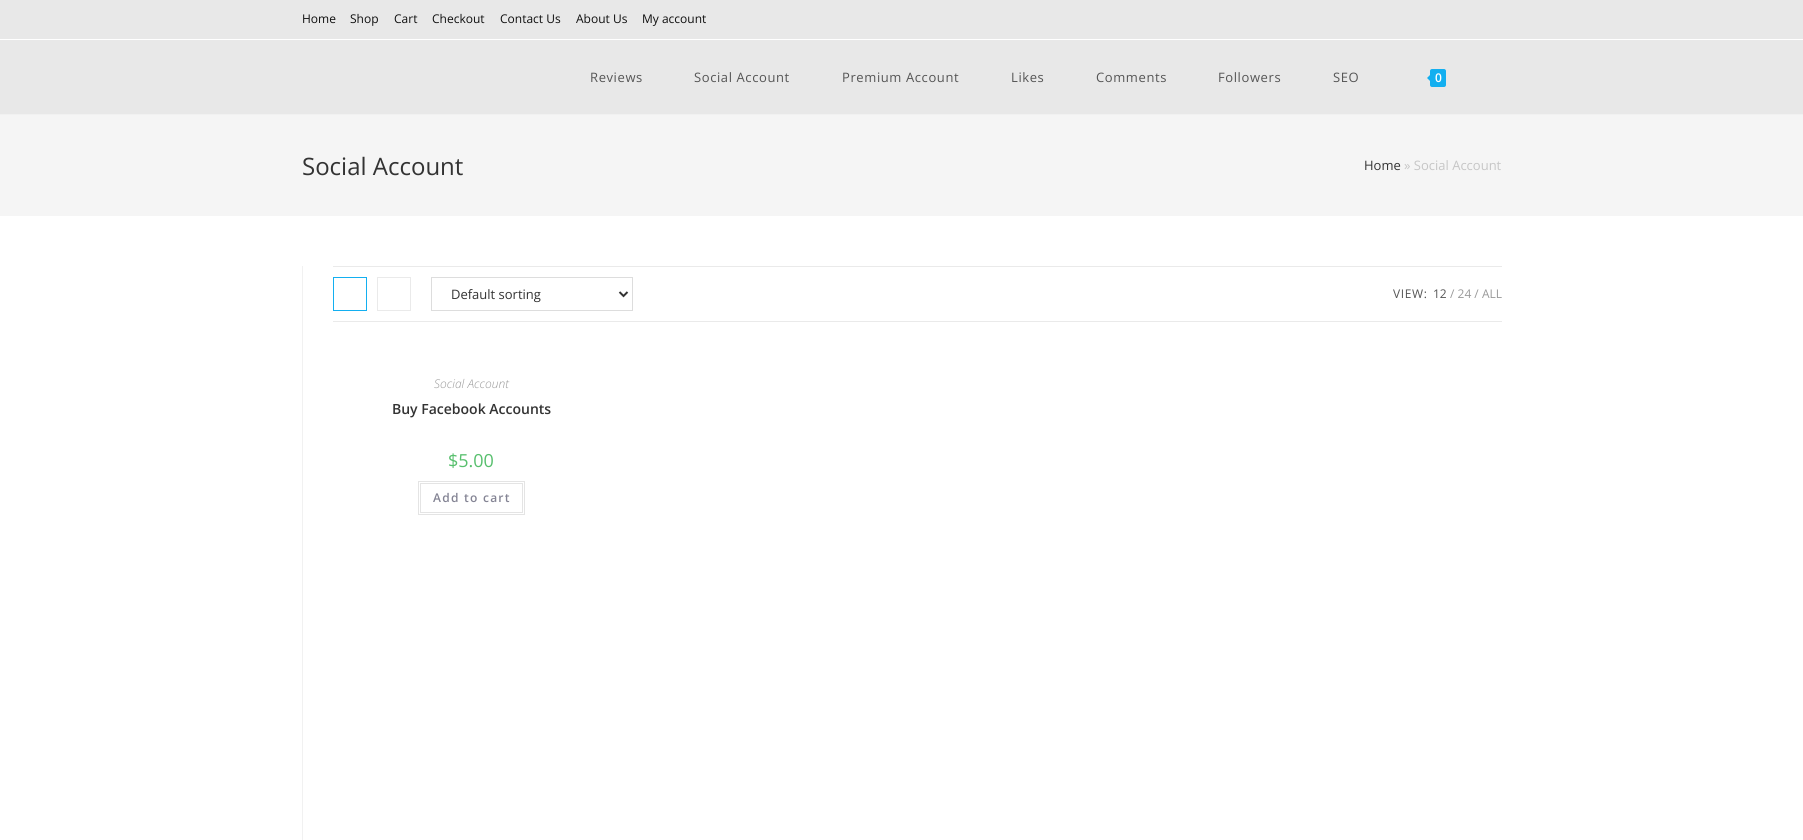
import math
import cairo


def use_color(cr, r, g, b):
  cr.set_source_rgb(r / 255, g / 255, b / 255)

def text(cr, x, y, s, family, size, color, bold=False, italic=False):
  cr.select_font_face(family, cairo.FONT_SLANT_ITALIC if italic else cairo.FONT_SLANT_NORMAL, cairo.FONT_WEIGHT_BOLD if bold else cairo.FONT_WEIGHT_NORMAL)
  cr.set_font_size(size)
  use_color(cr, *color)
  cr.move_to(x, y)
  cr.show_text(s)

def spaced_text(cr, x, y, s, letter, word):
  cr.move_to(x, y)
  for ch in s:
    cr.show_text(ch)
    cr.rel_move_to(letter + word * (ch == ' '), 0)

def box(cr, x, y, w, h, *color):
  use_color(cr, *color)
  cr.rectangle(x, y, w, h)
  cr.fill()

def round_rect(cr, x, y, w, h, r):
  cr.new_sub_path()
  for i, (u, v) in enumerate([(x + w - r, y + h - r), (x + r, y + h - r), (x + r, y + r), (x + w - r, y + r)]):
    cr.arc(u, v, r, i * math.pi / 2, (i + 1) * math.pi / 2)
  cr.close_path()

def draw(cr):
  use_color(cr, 255, 255, 255)
  cr.paint()
  box(cr, 0, 0, 1803, 39, 232, 232, 232)
  box(cr, 0, 40, 1803, 74, 232, 232, 232)
  box(cr, 0, 114, 1803, 1, 241, 241, 241)
  use_color(cr, 19, 175, 240)
  round_rect(cr, 1430, 69, 16, 18, 2)
  cr.fill()
  cr.new_path()
  cr.move_to(1432, 73)
  cr.line_to(1432, 83)
  cr.line_to(1427, 78)
  cr.close_path()
  cr.fill()
  box(cr, 0, 115, 1803, 101, 245, 245, 245)
  box(cr, 302, 266, 1, 574, 241, 241, 241)
  box(cr, 333, 266, 1169, 1, 234, 234, 234)
  box(cr, 333, 321, 1169, 1, 234, 234, 234)
  cr.rectangle(333.5, 277.5, 33, 33)
  use_color(cr, 19, 175, 240)
  cr.set_line_width(1)
  cr.stroke()
  cr.rectangle(377.5, 277.5, 33, 33)
  use_color(cr, 234, 234, 234)
  cr.stroke()
  cr.rectangle(431.5, 277.5, 201, 33)
  use_color(cr, 221, 221, 221)
  cr.stroke()
  cr.new_path()
  cr.move_to(619.5, 292)
  cr.line_to(623.5, 296)
  cr.line_to(627.5, 292)
  use_color(cr, 51, 51, 51)
  cr.set_line_width(2)
  cr.stroke()
  cr.rectangle(418.5, 481.5, 106, 33)
  use_color(cr, 228, 228, 228)
  cr.set_line_width(1)
  cr.stroke()
  cr.rectangle(420.5, 483.5, 102, 29)
  cr.stroke()
  text(cr, 302, 23, "Home", "Open Sans", 12, (15, 15, 15))
  text(cr, 350, 23, "Shop", "Open Sans", 12, (15, 15, 15))
  text(cr, 394, 23, "Cart", "Open Sans", 12, (15, 15, 15))
  text(cr, 432, 23, "Checkout", "Open Sans", 12, (15, 15, 15))
  text(cr, 500, 23, "Contact Us", "Open Sans", 12, (15, 15, 15))
  text(cr, 576, 23, "About Us", "Open Sans", 12, (15, 15, 15))
  text(cr, 642, 23, "My account", "Open Sans", 12, (15, 15, 15))
  cr.set_font_size(13)
  use_color(cr, 85, 85, 85)
  spaced_text(cr, 590, 82, "Reviews", 0.6, 0)
  spaced_text(cr, 694, 82, "Social Account", 0.6, 0)
  spaced_text(cr, 842, 82, "Premium Account", 0.6, 0)
  spaced_text(cr, 1011, 82, "Likes", 0.6, 0)
  spaced_text(cr, 1096, 82, "Comments", 0.6, 0)
  spaced_text(cr, 1218, 82, "Followers", 0.6, 0)
  spaced_text(cr, 1333, 82, "SEO", 0.6, 0)
  text(cr, 1435, 82, "0", "Open Sans SemiBold", 12, (255, 255, 255))
  text(cr, 302, 175, "Social Account", "Open Sans", 24, (51, 51, 51))
  text(cr, 1364, 170, "Home", "Open Sans", 13, (51, 51, 51))
  text(cr, 1404, 170, "» Social Account", "Open Sans", 13, (198, 198, 198))
  text(cr, 451, 299, "Default sorting", "Open Sans", 13, (51, 51, 51))
  cr.set_font_size(12)
  use_color(cr, 85, 85, 85)
  spaced_text(cr, 1393, 298, "VIEW:", 0.6, 0)
  text(cr, 1433, 298, "12", "Open Sans", 12, (85, 85, 85))
  text(cr, 1450, 298, "/ 24 / ALL", "Open Sans", 12, (153, 153, 153))
  text(cr, 434, 388, "Social Account", "Open Sans Light", 12, (153, 153, 153), italic=True)
  text(cr, 392, 414, "Buy Facebook Accounts", "Open Sans SemiBold", 14, (51, 51, 51))
  text(cr, 448, 467, "$5.00", "Open Sans", 18, (87, 191, 109))
  cr.select_font_face("Open Sans SemiBold")
  cr.set_font_size(12)
  use_color(cr, 132, 132, 148)
  spaced_text(cr, 433, 502, "Add to cart", 1.25, 0)


surface = cairo.ImageSurface(cairo.FORMAT_RGB24, 1803, 840)
cr = cairo.Context(surface)
options = cairo.FontOptions()
options.set_hint_metrics(cairo.HINT_METRICS_OFF)
options.set_hint_style(cairo.HINT_STYLE_NONE)
cr.set_font_options(options)
cr.set_miter_limit(4)
draw(cr)
surface.write_to_png("out.png")
